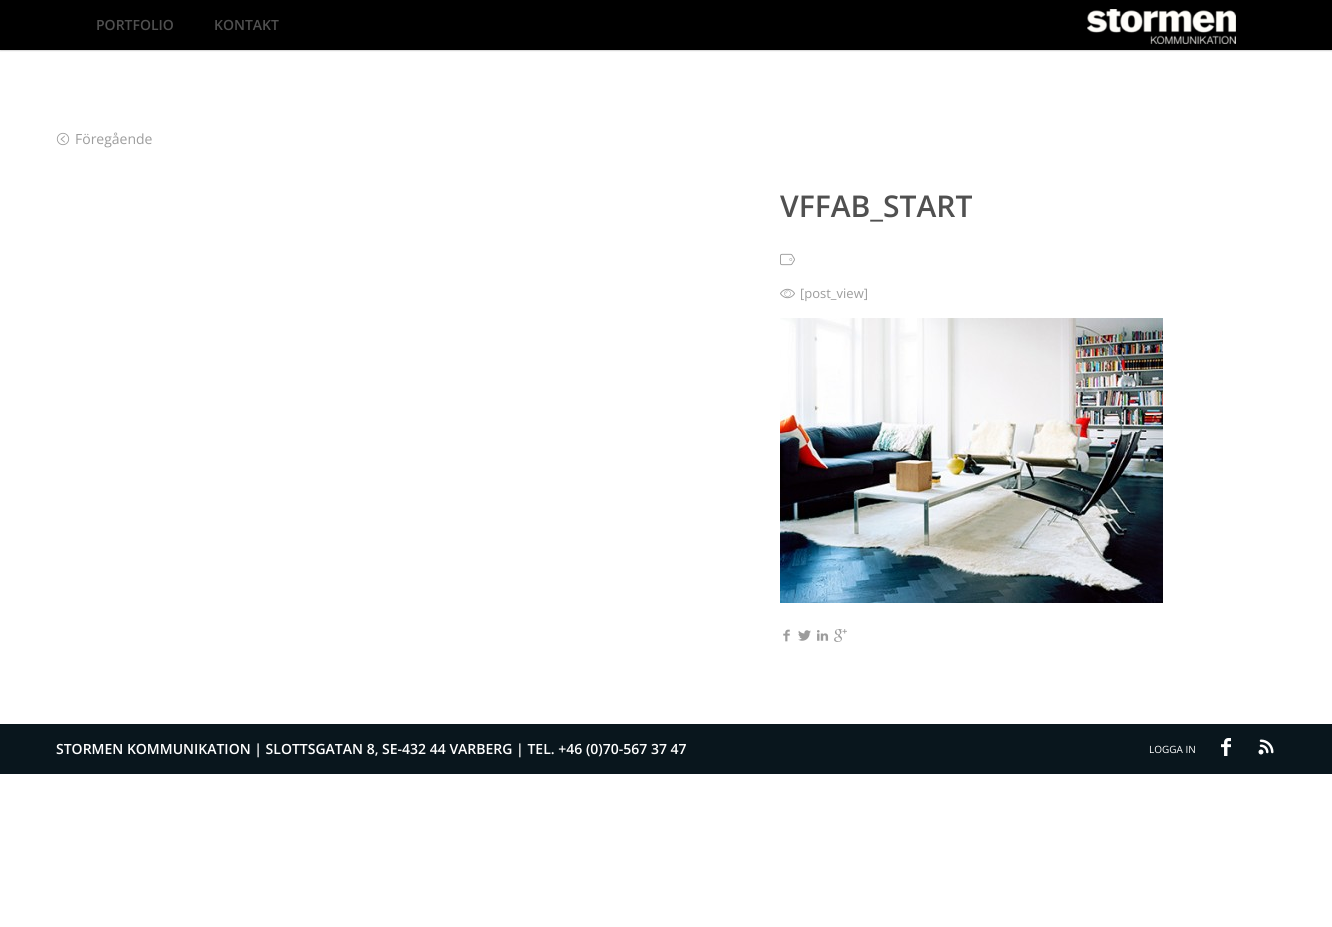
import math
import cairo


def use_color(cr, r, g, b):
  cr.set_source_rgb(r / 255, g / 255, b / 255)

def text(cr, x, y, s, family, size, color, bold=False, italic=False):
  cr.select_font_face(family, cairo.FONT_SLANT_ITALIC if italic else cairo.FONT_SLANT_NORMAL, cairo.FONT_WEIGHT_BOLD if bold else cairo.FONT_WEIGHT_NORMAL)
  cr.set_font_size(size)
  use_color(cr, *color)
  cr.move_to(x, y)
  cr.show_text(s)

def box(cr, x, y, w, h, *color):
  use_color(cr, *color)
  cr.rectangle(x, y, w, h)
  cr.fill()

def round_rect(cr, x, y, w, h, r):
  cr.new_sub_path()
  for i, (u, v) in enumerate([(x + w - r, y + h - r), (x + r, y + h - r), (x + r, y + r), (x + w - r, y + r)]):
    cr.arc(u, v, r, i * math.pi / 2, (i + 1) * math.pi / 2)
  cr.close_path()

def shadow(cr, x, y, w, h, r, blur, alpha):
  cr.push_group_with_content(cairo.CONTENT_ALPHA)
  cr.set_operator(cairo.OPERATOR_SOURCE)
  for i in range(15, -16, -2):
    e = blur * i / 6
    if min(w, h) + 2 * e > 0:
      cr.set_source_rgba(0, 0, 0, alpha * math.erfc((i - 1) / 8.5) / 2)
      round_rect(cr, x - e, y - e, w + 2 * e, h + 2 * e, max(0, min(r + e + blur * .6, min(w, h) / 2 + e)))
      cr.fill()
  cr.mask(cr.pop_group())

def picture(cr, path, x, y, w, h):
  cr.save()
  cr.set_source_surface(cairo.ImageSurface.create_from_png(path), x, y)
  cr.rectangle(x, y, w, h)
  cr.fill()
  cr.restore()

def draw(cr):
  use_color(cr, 255, 255, 255)
  cr.paint()
  use_color(cr, 0, 0, 0)
  shadow(cr, 0, 1, 1332, 50, 0, 0.5, 0.16)
  box(cr, 0, 0, 1332, 50, 0, 0, 0)
  picture(cr, "img_01.png", 1087, 9, 149, 35)
  picture(cr, "img_02.png", 56, 132, 14, 14)
  picture(cr, "img_03.png", 780, 253, 15, 13)
  picture(cr, "img_04.png", 780, 288, 15, 11)
  picture(cr, "img_05.png", 780, 318, 383, 285)
  picture(cr, "img_06.png", 783, 629, 7, 13)
  picture(cr, "img_07.png", 798, 630, 13, 11)
  picture(cr, "img_08.png", 817, 630, 12, 11)
  picture(cr, "img_09.png", 834, 629, 13, 13)
  box(cr, 0, 724, 1332, 50, 9, 22, 29)
  picture(cr, "img_10.png", 1221, 738, 10, 18)
  picture(cr, "img_11.png", 1258, 739, 16, 16)
  text(cr, 96, 30, "PORTFOLIO", "Open Sans SemiBold", 14, (80, 80, 80))
  text(cr, 214, 30, "KONTAKT", "Open Sans SemiBold", 14, (80, 80, 80))
  text(cr, 75, 144, "Föregående", "Open Sans", 14, (156, 156, 156))
  text(cr, 780, 217, "VFFAB_START", "Open Sans SemiBold", 30, (80, 80, 80))
  text(cr, 800, 298, "[post_view]", "Open Sans", 13, (156, 156, 156))
  text(cr, 56, 754, "STORMEN KOMMUNIKATION | SLOTTSGATAN 8, SE-432 44 VARBERG | TEL. +46 (0)70-567 37 47", "Open Sans SemiBold", 14, (255, 255, 255))
  text(cr, 1149, 753, "LOGGA IN", "Open Sans", 10, (255, 255, 255))


surface = cairo.ImageSurface(cairo.FORMAT_RGB24, 1332, 927)
cr = cairo.Context(surface)
options = cairo.FontOptions()
options.set_hint_metrics(cairo.HINT_METRICS_OFF)
options.set_hint_style(cairo.HINT_STYLE_NONE)
cr.set_font_options(options)
cr.set_miter_limit(4)
draw(cr)
surface.write_to_png("out.png")
